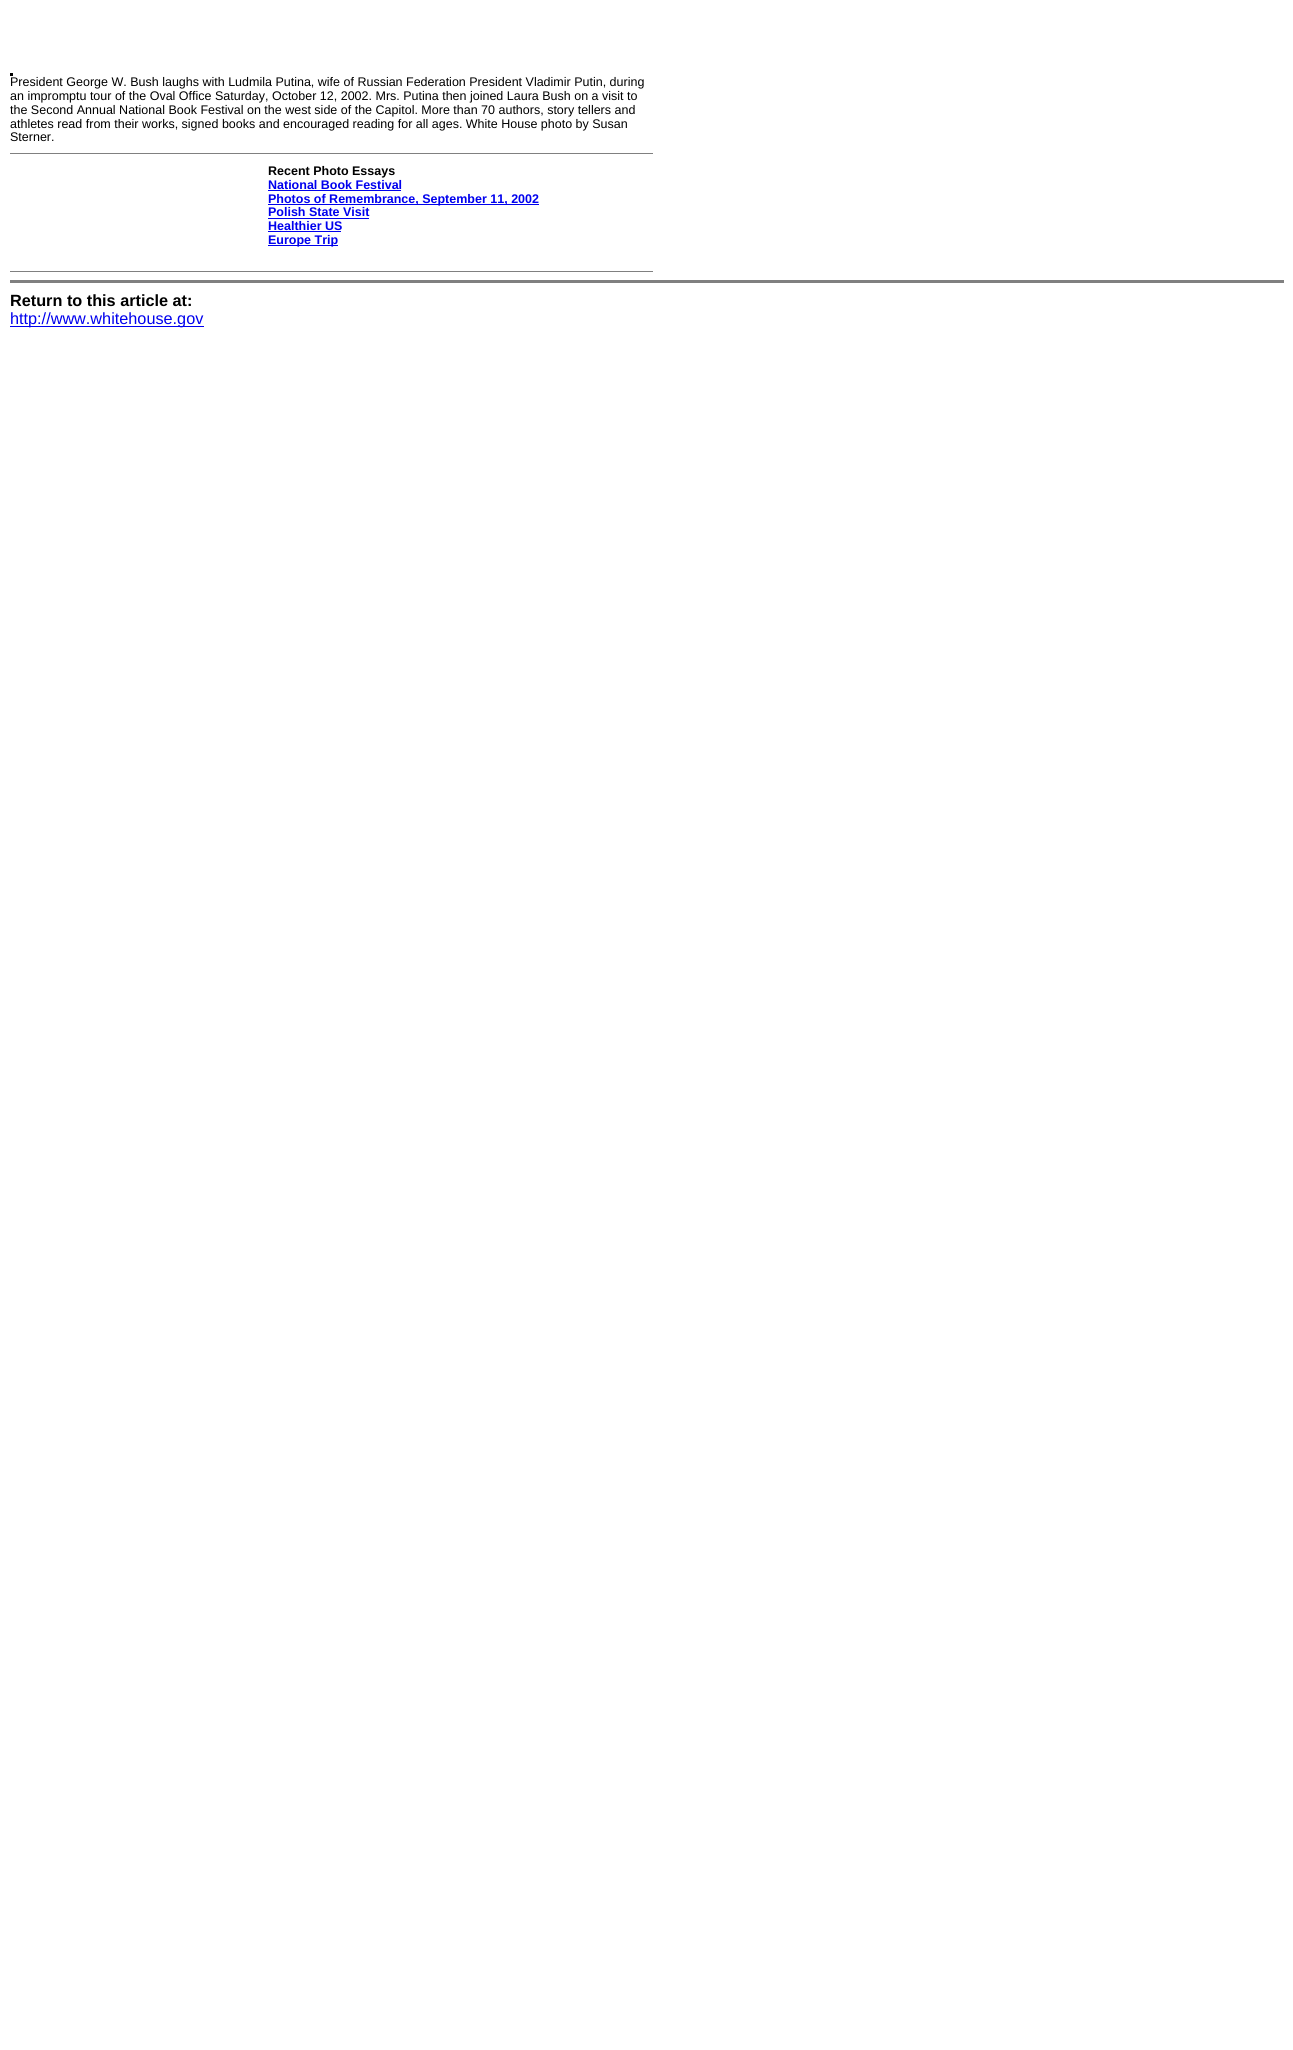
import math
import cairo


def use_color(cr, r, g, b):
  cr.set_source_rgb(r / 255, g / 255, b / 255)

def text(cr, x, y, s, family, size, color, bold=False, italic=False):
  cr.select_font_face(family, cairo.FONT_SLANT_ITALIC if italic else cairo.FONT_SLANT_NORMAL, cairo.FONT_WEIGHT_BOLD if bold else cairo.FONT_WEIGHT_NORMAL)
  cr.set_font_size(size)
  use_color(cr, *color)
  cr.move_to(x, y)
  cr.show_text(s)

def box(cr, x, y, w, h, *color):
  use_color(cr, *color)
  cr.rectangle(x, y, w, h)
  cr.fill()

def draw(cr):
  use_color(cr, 255, 255, 255)
  cr.paint()
  box(cr, 10, 73, 3, 3, 0, 0, 0)
  box(cr, 10, 153, 643, 1, 128, 128, 128)
  box(cr, 268, 190, 133, 1, 0, 0, 238)
  box(cr, 268, 204, 271, 1, 0, 0, 238)
  box(cr, 268, 218, 101, 1, 0, 0, 238)
  box(cr, 268, 231, 73, 1, 0, 0, 238)
  box(cr, 268, 245, 70, 1, 0, 0, 238)
  box(cr, 10, 271, 643, 1, 128, 128, 128)
  box(cr, 10, 280, 1274, 3, 128, 128, 128)
  box(cr, 10, 326, 194, 1, 0, 0, 238)
  text(cr, 10, 86, "President George W. Bush laughs with Ludmila Putina, wife of Russian Federation President Vladimir Putin, during", "Liberation Sans", 12.5, (0, 0, 0))
  text(cr, 10, 100, "an impromptu tour of the Oval Office Saturday, October 12, 2002. Mrs. Putina then joined Laura Bush on a visit to", "Liberation Sans", 12.5, (0, 0, 0))
  text(cr, 10, 114, "the Second Annual National Book Festival on the west side of the Capitol. More than 70 authors, story tellers and", "Liberation Sans", 12.5, (0, 0, 0))
  text(cr, 10, 128, "athletes read from their works, signed books and encouraged reading for all ages. White House photo by Susan", "Liberation Sans", 12.5, (0, 0, 0))
  text(cr, 10, 141, "Sterner.", "Liberation Sans", 12.5, (0, 0, 0))
  text(cr, 268, 175, "Recent Photo Essays", "Liberation Sans", 12.5, (0, 0, 0), bold=True)
  text(cr, 268, 189, "National Book Festival", "Liberation Sans", 12.5, (0, 0, 238), bold=True)
  text(cr, 268, 203, "Photos of Remembrance, September 11, 2002", "Liberation Sans", 12.5, (0, 0, 238), bold=True)
  text(cr, 268, 216, "Polish State Visit", "Liberation Sans", 12.5, (0, 0, 238), bold=True)
  text(cr, 268, 230, "Healthier US", "Liberation Sans", 12.5, (0, 0, 238), bold=True)
  text(cr, 268, 244, "Europe Trip", "Liberation Sans", 12.5, (0, 0, 238), bold=True)
  text(cr, 10, 306, "Return to this article at:", "Liberation Sans", 16.25, (0, 0, 0), bold=True)
  text(cr, 10, 324, "http://www.whitehouse.gov", "Liberation Sans", 16.25, (0, 0, 238))


surface = cairo.ImageSurface(cairo.FORMAT_RGB24, 1293, 2050)
cr = cairo.Context(surface)
options = cairo.FontOptions()
options.set_hint_metrics(cairo.HINT_METRICS_OFF)
options.set_hint_style(cairo.HINT_STYLE_NONE)
cr.set_font_options(options)
cr.set_miter_limit(4)
draw(cr)
surface.write_to_png("out.png")
